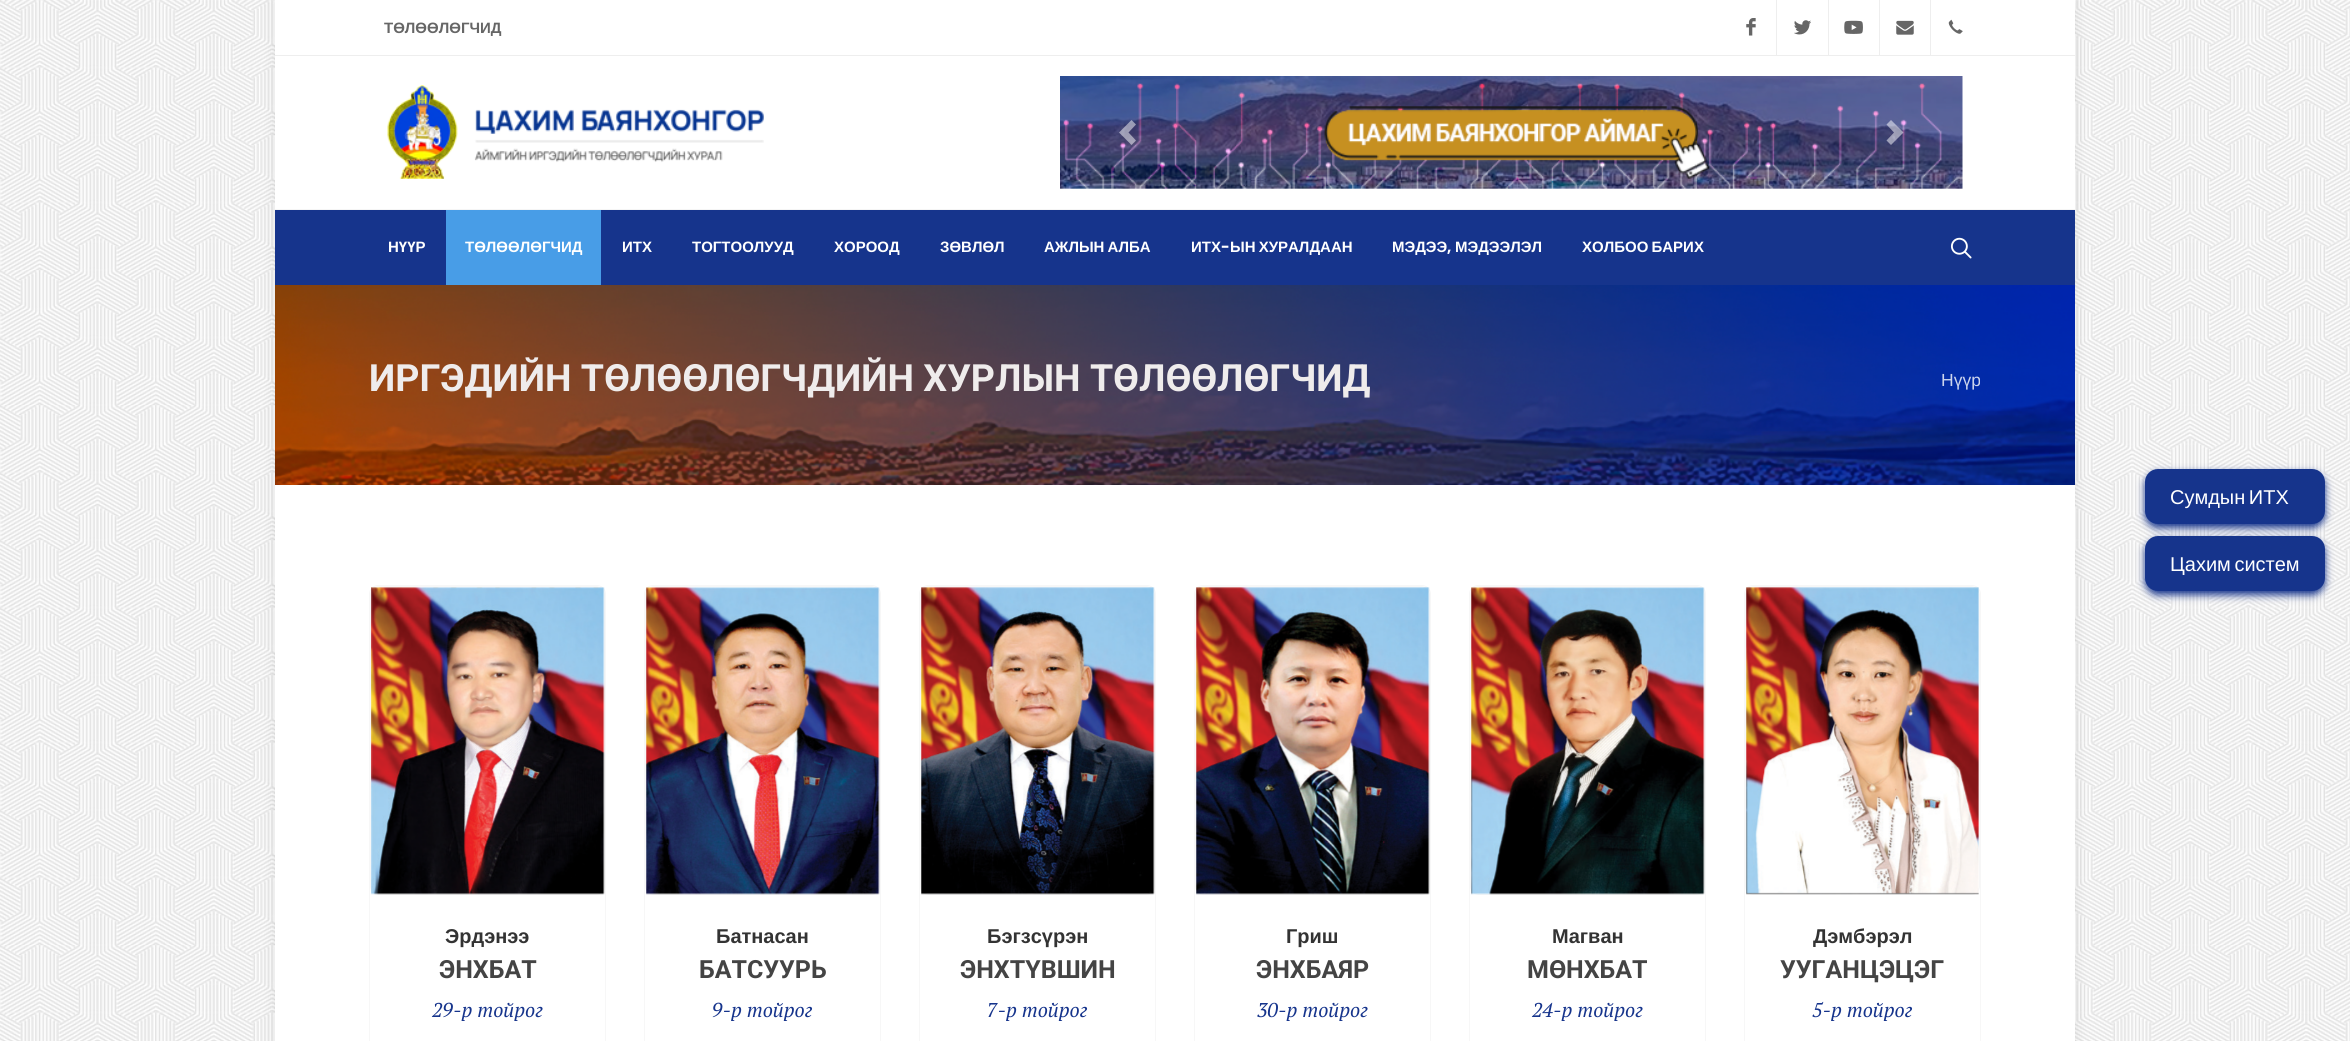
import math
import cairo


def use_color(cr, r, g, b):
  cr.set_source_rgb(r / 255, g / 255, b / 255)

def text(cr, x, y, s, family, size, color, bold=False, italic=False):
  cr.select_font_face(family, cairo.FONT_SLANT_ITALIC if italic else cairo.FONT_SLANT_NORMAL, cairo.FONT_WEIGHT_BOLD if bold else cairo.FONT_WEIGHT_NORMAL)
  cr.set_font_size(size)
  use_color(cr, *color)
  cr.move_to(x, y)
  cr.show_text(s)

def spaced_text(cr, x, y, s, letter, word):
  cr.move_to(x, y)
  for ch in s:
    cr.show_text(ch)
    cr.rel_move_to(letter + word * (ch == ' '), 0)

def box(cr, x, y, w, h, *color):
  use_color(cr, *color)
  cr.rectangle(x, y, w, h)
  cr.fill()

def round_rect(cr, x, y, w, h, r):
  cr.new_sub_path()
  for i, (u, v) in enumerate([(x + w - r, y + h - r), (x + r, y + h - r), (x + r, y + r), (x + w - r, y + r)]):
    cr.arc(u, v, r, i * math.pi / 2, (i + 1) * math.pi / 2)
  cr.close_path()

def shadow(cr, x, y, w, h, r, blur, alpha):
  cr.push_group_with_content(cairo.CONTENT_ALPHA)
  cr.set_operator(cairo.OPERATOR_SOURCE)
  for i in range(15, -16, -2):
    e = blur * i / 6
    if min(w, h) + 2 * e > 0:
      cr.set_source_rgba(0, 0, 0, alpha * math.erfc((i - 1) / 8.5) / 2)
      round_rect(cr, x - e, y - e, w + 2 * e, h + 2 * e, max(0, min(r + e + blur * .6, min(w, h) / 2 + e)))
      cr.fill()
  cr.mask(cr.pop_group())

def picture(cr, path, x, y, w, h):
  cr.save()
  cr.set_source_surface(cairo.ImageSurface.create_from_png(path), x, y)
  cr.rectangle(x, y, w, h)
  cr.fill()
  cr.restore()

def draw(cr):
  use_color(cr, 255, 255, 255)
  cr.paint()
  picture(cr, "img_01.png", 0, 0, 2350, 1041)
  use_color(cr, 0, 0, 0)
  shadow(cr, 275, 0, 1800, 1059, 0, 6, 0.1)
  box(cr, 275, 0, 1800, 1041, 255, 255, 255)
  box(cr, 275, 55, 1800, 1, 238, 238, 238)
  picture(cr, "img_02.png", 1746, 18, 10, 18)
  box(cr, 1776, 0, 1, 55, 238, 238, 238)
  picture(cr, "img_03.png", 1794, 20, 17, 15)
  box(cr, 1828, 0, 1, 55, 238, 238, 238)
  picture(cr, "img_04.png", 1844, 20, 19, 14)
  box(cr, 1879, 0, 1, 55, 238, 238, 238)
  picture(cr, "img_05.png", 1896, 20, 18, 15)
  box(cr, 1930, 0, 1, 55, 238, 238, 238)
  picture(cr, "img_06.png", 1948, 19, 15, 15)
  picture(cr, "img_07.png", 387, 85, 377, 94)
  picture(cr, "img_08.png", 1060, 76, 903, 113)
  cr.set_source_rgba(1, 1, 1, 0.5)
  cr.new_path()
  cr.move_to(1131.5, 120)
  cr.line_to(1119, 132.5)
  cr.line_to(1131.5, 145)
  cr.line_to(1136, 140.5)
  cr.line_to(1128.5, 132.5)
  cr.line_to(1136, 124.5)
  cr.close_path()
  cr.fill()
  cr.new_path()
  cr.move_to(1891, 120)
  cr.line_to(1886.5, 124.5)
  cr.line_to(1894, 132.5)
  cr.line_to(1886.5, 140.5)
  cr.line_to(1891, 145)
  cr.line_to(1903.5, 132.5)
  cr.close_path()
  cr.fill()
  box(cr, 275, 210, 1800, 75, 22, 52, 140)
  box(cr, 275, 209, 1800, 1, 245, 245, 245)
  box(cr, 446, 210, 155, 75, 72, 157, 231)
  picture(cr, "img_09.png", 1950, 237, 22, 22)
  picture(cr, "img_10.png", 275, 285, 1800, 200)
  round_rect(cr, 369.5, 585.5, 236, 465, 8.5)
  use_color(cr, 247, 247, 247)
  cr.set_line_width(1)
  cr.stroke()
  round_rect(cr, 370.5, 586.5, 234, 308, 8.5)
  cr.stroke()
  picture(cr, "img_11.png", 371, 587, 234, 308)
  round_rect(cr, 644.5, 585.5, 236, 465, 8.5)
  cr.stroke()
  round_rect(cr, 645.5, 586.5, 234, 308, 8.5)
  cr.stroke()
  picture(cr, "img_12.png", 646, 587, 234, 308)
  round_rect(cr, 919.5, 585.5, 236, 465, 8.5)
  cr.stroke()
  round_rect(cr, 920.5, 586.5, 234, 308, 8.5)
  cr.stroke()
  picture(cr, "img_13.png", 921, 587, 234, 308)
  round_rect(cr, 1194.5, 585.5, 236, 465, 8.5)
  cr.stroke()
  round_rect(cr, 1195.5, 586.5, 234, 308, 8.5)
  cr.stroke()
  picture(cr, "img_14.png", 1196, 587, 234, 308)
  round_rect(cr, 1469.5, 585.5, 236, 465, 8.5)
  cr.stroke()
  round_rect(cr, 1470.5, 586.5, 234, 308, 8.5)
  cr.stroke()
  picture(cr, "img_15.png", 1471, 587, 234, 308)
  round_rect(cr, 1744.5, 585.5, 236, 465, 8.5)
  cr.stroke()
  round_rect(cr, 1745.5, 586.5, 234, 308, 8.5)
  cr.stroke()
  picture(cr, "img_16.png", 1746, 587, 233, 308)
  use_color(cr, 22, 52, 140)
  shadow(cr, 2145, 473, 180, 55, 13, 4, 1)
  use_color(cr, 22, 52, 140)
  round_rect(cr, 2145, 469, 180, 55, 13)
  cr.fill()
  use_color(cr, 22, 52, 140)
  shadow(cr, 2145, 540, 180, 55, 13, 4, 1)
  use_color(cr, 22, 52, 140)
  round_rect(cr, 2145, 536, 180, 55, 13)
  cr.fill()
  text(cr, 384, 33, "ТӨЛӨӨЛӨГЧИД", "Liberation Sans", 15, (102, 102, 102), bold=True)
  text(cr, 388, 252, "НҮҮР", "Liberation Sans", 15, (255, 255, 255), bold=True)
  text(cr, 465, 252, "ТӨЛӨӨЛӨГЧИД", "Liberation Sans", 15, (255, 255, 255), bold=True)
  text(cr, 622, 252, "ИТХ", "Liberation Sans", 15, (255, 255, 255), bold=True)
  text(cr, 692, 252, "ТОГТООЛУУД", "Liberation Sans", 15, (255, 255, 255), bold=True)
  text(cr, 834, 252, "ХОРООД", "Liberation Sans", 15, (255, 255, 255), bold=True)
  text(cr, 940, 252, "ЗӨВЛӨЛ", "Liberation Sans", 15, (255, 255, 255), bold=True)
  spaced_text(cr, 1044, 252, "АЖЛЫН АЛБА", 0, -1)
  text(cr, 1191, 252, "ИТХ", "Liberation Sans", 15, (255, 255, 255), bold=True)
  text(cr, 1221, 252, "-", "Poppins", 15, (255, 255, 255), bold=True)
  cr.select_font_face("Liberation Sans", cairo.FONT_SLANT_NORMAL, cairo.FONT_WEIGHT_BOLD)
  spaced_text(cr, 1230, 252, "ЫН ХУРАЛДААН", 0, -1)
  text(cr, 1392, 252, "МЭДЭЭ", "Liberation Sans", 15, (255, 255, 255), bold=True)
  text(cr, 1447, 252, ",", "Poppins", 15, (255, 255, 255), bold=True)
  text(cr, 1455, 252, "МЭДЭЭЛЭЛ", "Liberation Sans", 15, (255, 255, 255), bold=True)
  spaced_text(cr, 1582, 252, "ХОЛБОО БАРИХ", 0, -1)
  text(cr, 369, 391, "ИРГЭДИЙН ТӨЛӨӨЛӨГЧДИЙН ХУРЛЫН ТӨЛӨӨЛӨГЧИД", "Roboto", 37.5, (239, 236, 236), bold=True)
  text(cr, 1941, 386, "Нүүр", "Liberation Sans", 17.5, (205, 213, 237))
  text(cr, 445, 943, "Эрдэнээ", "Liberation Sans", 20, (51, 51, 51), bold=True)
  text(cr, 439, 978, "ЭНХБАТ", "Roboto", 25, (68, 68, 68), bold=True)
  text(cr, 432, 1017, "29-р тойрог", "PT Serif", 20, (22, 52, 140), italic=True)
  text(cr, 716, 943, "Батнасан", "Liberation Sans", 20, (51, 51, 51), bold=True)
  text(cr, 699, 978, "БАТСУУРЬ", "Roboto", 25, (68, 68, 68), bold=True)
  text(cr, 712, 1017, "9-р тойрог", "PT Serif", 20, (22, 52, 140), italic=True)
  text(cr, 987, 943, "Бэгзсүрэн", "Liberation Sans", 20, (51, 51, 51), bold=True)
  text(cr, 960, 978, "ЭНХТҮВШИН", "Roboto", 25, (68, 68, 68), bold=True)
  text(cr, 987, 1017, "7-р тойрог", "PT Serif", 20, (22, 52, 140), italic=True)
  text(cr, 1286, 943, "Гриш", "Liberation Sans", 20, (51, 51, 51), bold=True)
  text(cr, 1256, 978, "ЭНХБАЯР", "Roboto", 25, (68, 68, 68), bold=True)
  text(cr, 1257, 1017, "30-р тойрог", "PT Serif", 20, (22, 52, 140), italic=True)
  text(cr, 1552, 943, "Магван", "Liberation Sans", 20, (51, 51, 51), bold=True)
  text(cr, 1527, 978, "МӨНХБАТ", "Roboto", 25, (68, 68, 68), bold=True)
  text(cr, 1532, 1017, "24-р тойрог", "PT Serif", 20, (22, 52, 140), italic=True)
  text(cr, 1813, 943, "Дэмбэрэл", "Liberation Sans", 20, (51, 51, 51), bold=True)
  text(cr, 1780, 978, "УУГАНЦЭЦЭГ", "Roboto", 25, (68, 68, 68), bold=True)
  text(cr, 1812, 1017, "5-р тойрог", "PT Serif", 20, (22, 52, 140), italic=True)
  cr.select_font_face("Liberation Sans")
  use_color(cr, 255, 255, 255)
  spaced_text(cr, 2170, 504, "Сумдын ИТХ", 0, -2)
  spaced_text(cr, 2170, 571, "Цахим систем", 0, -2)


surface = cairo.ImageSurface(cairo.FORMAT_RGB24, 2350, 1041)
cr = cairo.Context(surface)
options = cairo.FontOptions()
options.set_hint_metrics(cairo.HINT_METRICS_OFF)
options.set_hint_style(cairo.HINT_STYLE_NONE)
cr.set_font_options(options)
cr.set_miter_limit(4)
draw(cr)
surface.write_to_png("out.png")
